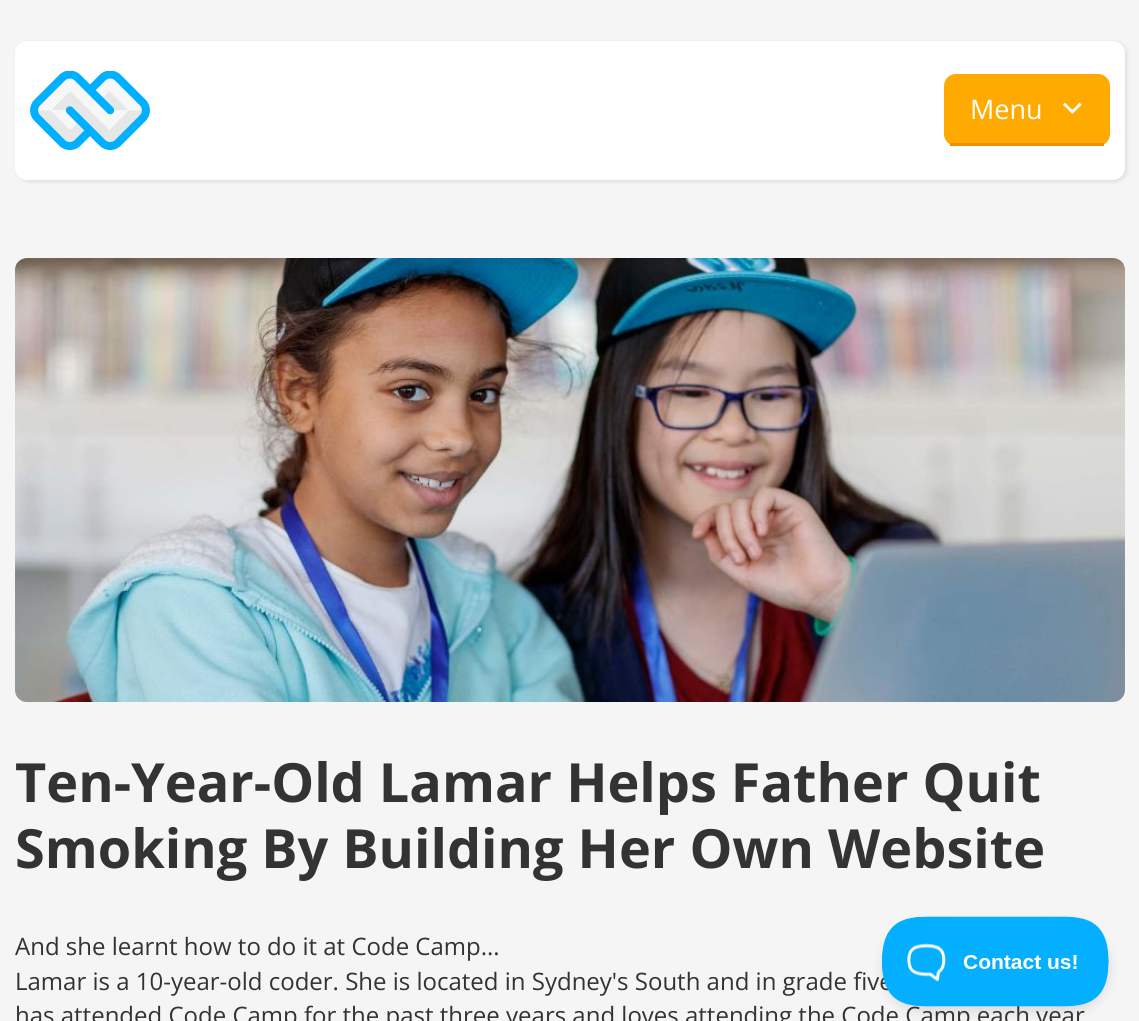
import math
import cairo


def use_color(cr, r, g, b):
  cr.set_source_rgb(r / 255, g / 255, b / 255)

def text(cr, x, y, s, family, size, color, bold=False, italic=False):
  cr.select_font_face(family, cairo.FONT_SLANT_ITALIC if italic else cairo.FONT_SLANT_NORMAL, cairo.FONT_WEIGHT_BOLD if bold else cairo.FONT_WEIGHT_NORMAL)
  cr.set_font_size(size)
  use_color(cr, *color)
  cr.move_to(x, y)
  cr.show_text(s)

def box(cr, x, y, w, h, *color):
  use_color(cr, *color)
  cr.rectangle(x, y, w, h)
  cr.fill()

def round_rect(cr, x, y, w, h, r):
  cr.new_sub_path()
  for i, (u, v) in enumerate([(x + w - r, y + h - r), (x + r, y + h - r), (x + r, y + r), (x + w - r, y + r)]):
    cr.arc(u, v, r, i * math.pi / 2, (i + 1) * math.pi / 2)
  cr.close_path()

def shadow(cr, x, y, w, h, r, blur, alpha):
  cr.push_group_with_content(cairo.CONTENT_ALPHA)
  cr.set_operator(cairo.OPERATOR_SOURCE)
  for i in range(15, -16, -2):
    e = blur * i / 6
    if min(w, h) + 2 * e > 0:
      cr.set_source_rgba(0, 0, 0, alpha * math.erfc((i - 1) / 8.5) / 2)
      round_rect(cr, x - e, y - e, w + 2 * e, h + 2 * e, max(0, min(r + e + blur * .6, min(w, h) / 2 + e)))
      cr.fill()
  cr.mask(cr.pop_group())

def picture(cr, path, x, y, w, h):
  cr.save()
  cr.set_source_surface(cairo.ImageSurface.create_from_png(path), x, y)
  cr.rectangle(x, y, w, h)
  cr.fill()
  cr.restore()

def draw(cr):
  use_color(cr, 245, 245, 245)
  cr.paint()
  use_color(cr, 0, 0, 0)
  shadow(cr, 17, 42, 1110, 140, 12, 2, 0.1)
  use_color(cr, 255, 255, 255)
  round_rect(cr, 15, 41, 1110, 139, 12)
  cr.fill()
  picture(cr, "img_01.png", 30, 71, 120, 79)
  use_color(cr, 255, 170, 0)
  round_rect(cr, 944, 74, 166, 72, 12)
  cr.fill()
  box(cr, 950, 143, 154, 3, 243, 140, 0)
  picture(cr, "img_02.png", 1063, 102, 19, 12)
  picture(cr, "img_03.png", 15, 258, 1110, 444)
  use_color(cr, 0, 0, 0)
  shadow(cr, 882, 923, 228, 90, 45, 5, 0.1)
  text(cr, 970, 119, "Menu", "Open Sans", 27, (255, 255, 255))
  text(cr, 15, 802, "Ten-Year-Old Lamar Helps Father Quit", "Open Sans", 54, (51, 51, 51), bold=True)
  text(cr, 15, 868, "Smoking By Building Her Own Website", "Open Sans", 54, (51, 51, 51), bold=True)
  text(cr, 15, 955, "And she learnt how to do it at Code Camp...", "Open Sans", 24, (51, 51, 51))
  text(cr, 15, 990, "Lamar is a 10-year-old coder. She is located in Sydney's South and in grade five", "Open Sans", 24, (51, 51, 51))
  text(cr, 15, 1024, "has attended Code Camp for the past three years and loves attending the Code Camp each year", "Open Sans", 24, (51, 51, 51))
  picture(cr, "img_04.png", 882, 916, 227, 91)


surface = cairo.ImageSurface(cairo.FORMAT_RGB24, 1139, 1021)
cr = cairo.Context(surface)
options = cairo.FontOptions()
options.set_hint_metrics(cairo.HINT_METRICS_OFF)
options.set_hint_style(cairo.HINT_STYLE_NONE)
cr.set_font_options(options)
cr.set_miter_limit(4)
draw(cr)
surface.write_to_png("out.png")
